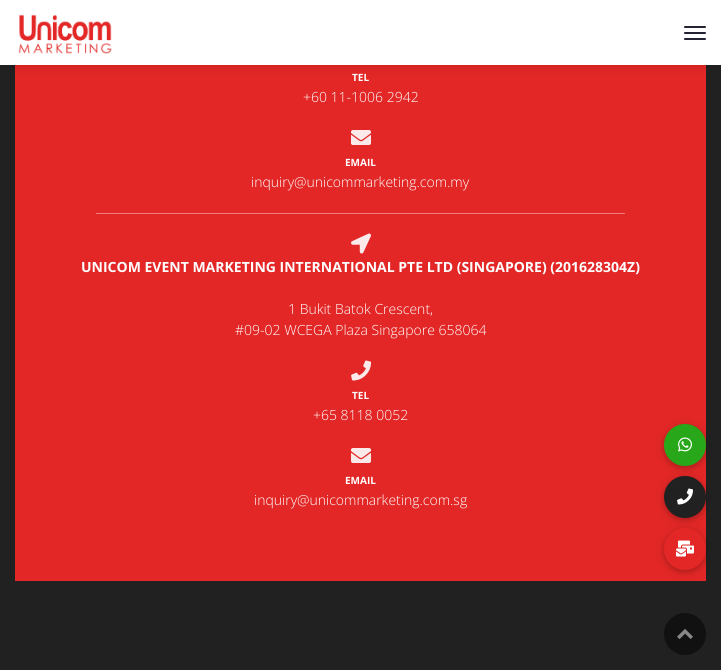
import math
import cairo


def use_color(cr, r, g, b):
  cr.set_source_rgb(r / 255, g / 255, b / 255)

def text(cr, x, y, s, family, size, color, bold=False, italic=False):
  cr.select_font_face(family, cairo.FONT_SLANT_ITALIC if italic else cairo.FONT_SLANT_NORMAL, cairo.FONT_WEIGHT_BOLD if bold else cairo.FONT_WEIGHT_NORMAL)
  cr.set_font_size(size)
  use_color(cr, *color)
  cr.move_to(x, y)
  cr.show_text(s)

def box(cr, x, y, w, h, *color):
  use_color(cr, *color)
  cr.rectangle(x, y, w, h)
  cr.fill()

def round_rect(cr, x, y, w, h, r):
  cr.new_sub_path()
  for i, (u, v) in enumerate([(x + w - r, y + h - r), (x + r, y + h - r), (x + r, y + r), (x + w - r, y + r)]):
    cr.arc(u, v, r, i * math.pi / 2, (i + 1) * math.pi / 2)
  cr.close_path()

def shadow(cr, x, y, w, h, r, blur, alpha):
  cr.push_group_with_content(cairo.CONTENT_ALPHA)
  cr.set_operator(cairo.OPERATOR_SOURCE)
  for i in range(15, -16, -2):
    e = blur * i / 6
    if min(w, h) + 2 * e > 0:
      cr.set_source_rgba(0, 0, 0, alpha * math.erfc((i - 1) / 8.5) / 2)
      round_rect(cr, x - e, y - e, w + 2 * e, h + 2 * e, max(0, min(r + e + blur * .6, min(w, h) / 2 + e)))
      cr.fill()
  cr.mask(cr.pop_group())

def picture(cr, path, x, y, w, h):
  cr.save()
  cr.set_source_surface(cairo.ImageSurface.create_from_png(path), x, y)
  cr.rectangle(x, y, w, h)
  cr.fill()
  cr.restore()

def draw(cr):
  use_color(cr, 33, 33, 33)
  cr.paint()
  box(cr, 15, 65, 691, 516, 226, 39, 38)
  use_color(cr, 0, 0, 0)
  shadow(cr, 0, -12, 721, 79, 0, 5, 0.1)
  box(cr, 0, 0, 721, 65, 255, 255, 255)
  picture(cr, "img_01.png", 18, 14, 94, 40)
  use_color(cr, 35, 35, 49)
  round_rect(cr, 684, 26, 22, 2, 1)
  cr.fill()
  round_rect(cr, 684, 32, 22, 2, 1)
  cr.fill()
  round_rect(cr, 684, 38, 22, 2, 1)
  cr.fill()
  picture(cr, "img_02.png", 351, 130, 20, 15)
  box(cr, 96, 213, 529, 1, 238, 125, 125)
  picture(cr, "img_03.png", 351, 233, 20, 21)
  picture(cr, "img_04.png", 351, 360, 20, 21)
  picture(cr, "img_02.png", 351, 448, 20, 15)
  use_color(cr, 0, 0, 0)
  shadow(cr, 664, 530, 42, 42, 21, 5, 0.12)
  shadow(cr, 664, 530, 42, 42, 21, 2.5, 0.16)
  use_color(cr, 226, 39, 38)
  cr.arc(685, 549, 21, 0, 2 * math.pi)
  cr.fill()
  use_color(cr, 0, 0, 0)
  shadow(cr, 664, 478, 42, 42, 21, 5, 0.12)
  shadow(cr, 664, 478, 42, 42, 21, 2.5, 0.16)
  use_color(cr, 33, 33, 33)
  cr.arc(685, 497, 21, 0, 2 * math.pi)
  cr.fill()
  use_color(cr, 0, 0, 0)
  shadow(cr, 664, 426, 42, 42, 21, 5, 0.12)
  shadow(cr, 664, 426, 42, 42, 21, 2.5, 0.16)
  use_color(cr, 41, 167, 26)
  cr.arc(685, 445, 21, 0, 2 * math.pi)
  cr.fill()
  picture(cr, "img_05.png", 678, 437, 14, 15)
  picture(cr, "img_06.png", 677, 488, 16, 17)
  picture(cr, "img_07.png", 676, 540, 18, 17)
  use_color(cr, 17, 17, 17)
  cr.arc(685, 634, 21, 0, 2 * math.pi)
  cr.fill()
  picture(cr, "img_08.png", 677, 629, 16, 10)
  text(cr, 352, 81, "TEL", "Open Sans", 10, (255, 255, 255), bold=True)
  text(cr, 303, 102, "+60 11-1006 2942", "Open Sans Light", 14, (255, 255, 255))
  text(cr, 345, 166, "EMAIL", "Open Sans", 10, (255, 255, 255), bold=True)
  text(cr, 251, 187, "inquiry@unicommarketing.com.my", "Open Sans Light", 14, (255, 255, 255))
  text(cr, 81, 272, "UNICOM EVENT MARKETING INTERNATIONAL PTE LTD (SINGAPORE) (201628304Z)", "Open Sans", 14, (255, 255, 255), bold=True)
  text(cr, 288, 314, "1 Bukit Batok Crescent,", "Open Sans Light", 14, (255, 255, 255))
  text(cr, 235, 335, "#09-02 WCEGA Plaza Singapore 658064", "Open Sans Light", 14, (255, 255, 255))
  text(cr, 352, 399, "TEL", "Open Sans", 10, (255, 255, 255), bold=True)
  text(cr, 313, 420, "+65 8118 0052", "Open Sans Light", 14, (255, 255, 255))
  text(cr, 345, 484, "EMAIL", "Open Sans", 10, (255, 255, 255), bold=True)
  text(cr, 254, 505, "inquiry@unicommarketing.com.sg", "Open Sans Light", 14, (255, 255, 255))


surface = cairo.ImageSurface(cairo.FORMAT_RGB24, 721, 670)
cr = cairo.Context(surface)
options = cairo.FontOptions()
options.set_hint_metrics(cairo.HINT_METRICS_OFF)
options.set_hint_style(cairo.HINT_STYLE_NONE)
cr.set_font_options(options)
cr.set_miter_limit(4)
draw(cr)
surface.write_to_png("out.png")
